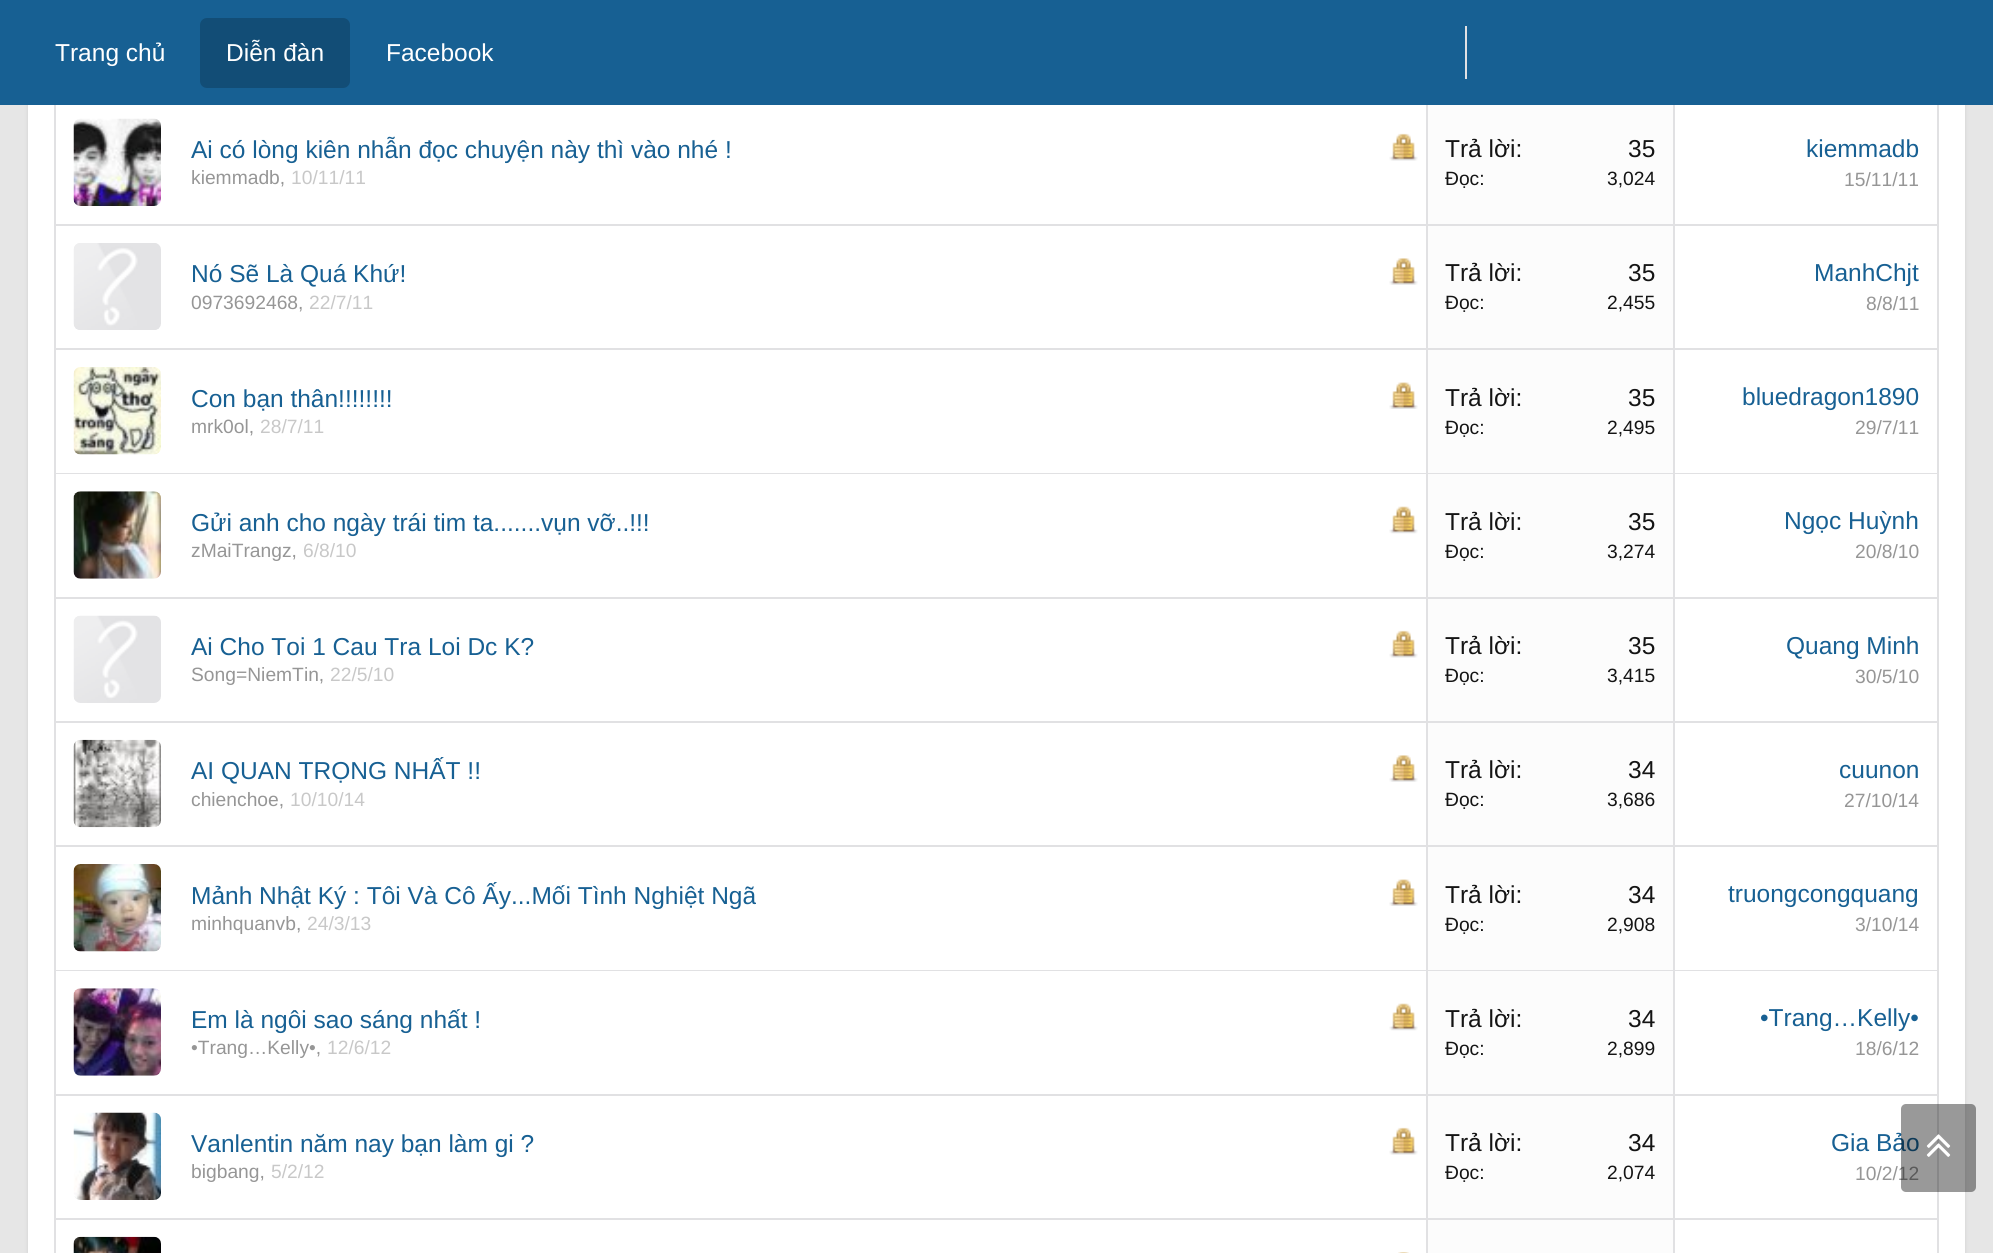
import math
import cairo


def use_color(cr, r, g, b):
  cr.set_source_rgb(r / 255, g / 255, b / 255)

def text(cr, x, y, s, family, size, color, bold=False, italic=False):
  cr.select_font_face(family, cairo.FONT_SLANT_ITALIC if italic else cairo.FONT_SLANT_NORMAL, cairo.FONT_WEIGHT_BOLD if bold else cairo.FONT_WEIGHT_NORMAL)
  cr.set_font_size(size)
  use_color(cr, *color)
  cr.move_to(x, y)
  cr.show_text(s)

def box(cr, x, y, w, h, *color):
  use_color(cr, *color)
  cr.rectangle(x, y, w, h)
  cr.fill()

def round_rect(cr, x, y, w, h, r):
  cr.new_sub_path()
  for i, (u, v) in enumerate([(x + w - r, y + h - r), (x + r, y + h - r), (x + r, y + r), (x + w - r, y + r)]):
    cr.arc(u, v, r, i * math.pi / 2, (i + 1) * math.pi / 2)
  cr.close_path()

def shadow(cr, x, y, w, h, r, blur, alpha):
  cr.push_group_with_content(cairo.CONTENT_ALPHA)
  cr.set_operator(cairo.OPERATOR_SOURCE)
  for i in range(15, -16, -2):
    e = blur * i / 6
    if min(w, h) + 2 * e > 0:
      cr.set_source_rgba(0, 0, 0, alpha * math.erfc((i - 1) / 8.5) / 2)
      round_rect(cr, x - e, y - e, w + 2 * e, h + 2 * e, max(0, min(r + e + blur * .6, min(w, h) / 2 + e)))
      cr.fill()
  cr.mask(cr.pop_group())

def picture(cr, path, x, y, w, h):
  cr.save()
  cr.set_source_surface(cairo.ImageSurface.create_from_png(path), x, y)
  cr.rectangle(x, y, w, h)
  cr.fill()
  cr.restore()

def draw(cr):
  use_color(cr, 230, 230, 230)
  cr.paint()
  use_color(cr, 0, 0, 0)
  shadow(cr, 28, -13, 1937, 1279, 7, 2, 0.1)
  box(cr, 28, 105, 1937, 1148, 255, 255, 255)
  cr.rectangle(55, 38, 1883, 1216)
  use_color(cr, 225, 225, 227)
  cr.stroke()
  box(cr, 1673, 102, 2, 122, 225, 225, 227)
  box(cr, 1426, 102, 2, 122, 225, 225, 227)
  box(cr, 0, 0, 1993, 105, 23, 96, 147)
  use_color(cr, 18, 77, 118)
  round_rect(cr, 200, 18, 150, 70, 7)
  cr.fill()
  box(cr, 1465, 26, 2, 53, 225, 225, 227)
  box(cr, 56, 224, 1881, 2, 225, 225, 227)
  picture(cr, "img_01.png", 73, 118, 88, 88)
  picture(cr, "img_02.png", 1389, 133, 29, 28)
  box(cr, 1428, 105, 245, 119, 252, 252, 252)
  box(cr, 56, 348, 1881, 2, 225, 225, 227)
  picture(cr, "img_03.png", 73, 243, 88, 87)
  picture(cr, "img_04.png", 1389, 258, 29, 27)
  box(cr, 1428, 226, 245, 122, 252, 252, 252)
  box(cr, 1673, 226, 2, 122, 225, 225, 227)
  box(cr, 1426, 226, 2, 122, 225, 225, 227)
  box(cr, 56, 473, 1881, 1, 225, 225, 227)
  picture(cr, "img_05.png", 73, 367, 88, 88)
  picture(cr, "img_06.png", 1389, 382, 29, 27)
  box(cr, 1428, 350, 245, 123, 252, 252, 252)
  box(cr, 1673, 350, 2, 123, 225, 225, 227)
  box(cr, 1426, 350, 2, 123, 225, 225, 227)
  box(cr, 56, 597, 1881, 2, 225, 225, 227)
  picture(cr, "img_07.png", 73, 491, 88, 88)
  picture(cr, "img_08.png", 1389, 506, 29, 28)
  box(cr, 1428, 474, 245, 123, 252, 252, 252)
  box(cr, 1673, 474, 2, 123, 225, 225, 227)
  box(cr, 1426, 474, 2, 123, 225, 225, 227)
  box(cr, 56, 721, 1881, 2, 225, 225, 227)
  picture(cr, "img_09.png", 73, 615, 88, 88)
  picture(cr, "img_02.png", 1389, 630, 29, 28)
  box(cr, 1428, 599, 245, 122, 252, 252, 252)
  box(cr, 1673, 599, 2, 122, 225, 225, 227)
  box(cr, 1426, 599, 2, 122, 225, 225, 227)
  box(cr, 56, 845, 1881, 2, 225, 225, 227)
  picture(cr, "img_10.png", 73, 739, 88, 89)
  picture(cr, "img_04.png", 1389, 755, 29, 27)
  box(cr, 1428, 723, 245, 122, 252, 252, 252)
  box(cr, 1673, 723, 2, 122, 225, 225, 227)
  box(cr, 1426, 723, 2, 122, 225, 225, 227)
  box(cr, 56, 970, 1881, 1, 225, 225, 227)
  picture(cr, "img_11.png", 73, 864, 88, 88)
  picture(cr, "img_06.png", 1389, 879, 29, 27)
  box(cr, 1428, 847, 245, 123, 252, 252, 252)
  box(cr, 1673, 847, 2, 123, 225, 225, 227)
  box(cr, 1426, 847, 2, 123, 225, 225, 227)
  box(cr, 56, 1094, 1881, 2, 225, 225, 227)
  picture(cr, "img_12.png", 73, 988, 88, 88)
  picture(cr, "img_08.png", 1389, 1003, 29, 28)
  box(cr, 1428, 971, 245, 123, 252, 252, 252)
  box(cr, 1673, 971, 2, 123, 225, 225, 227)
  box(cr, 1426, 971, 2, 123, 225, 225, 227)
  box(cr, 56, 1218, 1881, 2, 225, 225, 227)
  picture(cr, "img_13.png", 73, 1112, 88, 88)
  picture(cr, "img_02.png", 1389, 1127, 29, 28)
  box(cr, 1428, 1096, 245, 122, 252, 252, 252)
  box(cr, 1673, 1096, 2, 122, 225, 225, 227)
  box(cr, 1426, 1096, 2, 122, 225, 225, 227)
  picture(cr, "img_14.png", 73, 1236, 88, 17)
  picture(cr, "img_15.png", 1398, 1252, 11, 1)
  box(cr, 1428, 1220, 245, 33, 252, 252, 252)
  box(cr, 1673, 1220, 2, 33, 225, 225, 227)
  box(cr, 1426, 1220, 2, 33, 225, 225, 227)
  text(cr, 55, 61, "Trang chủ", "Liberation Sans", 24.5, (255, 255, 255))
  text(cr, 226, 61, "Diễn đàn", "Liberation Sans", 24.5, (255, 255, 255))
  text(cr, 386, 61, "Facebook", "Liberation Sans", 24.5, (255, 255, 255))
  text(cr, 191, 158, "Ai có lòng kiên nhẫn đọc chuyện này thì vào nhé !", "Liberation Sans", 24.5, (23, 96, 147))
  text(cr, 191, 184, "kiemmadb,", "Liberation Sans", 19.25, (150, 150, 150))
  text(cr, 291, 184, "10/11/11", "Liberation Sans", 19.25, (200, 200, 200))
  text(cr, 1445, 157, "Trả lời:", "Liberation Sans", 24.5, (20, 20, 20))
  text(cr, 1628, 157, "35", "Liberation Sans", 24.5, (20, 20, 20))
  text(cr, 1445, 185, "Đọc:", "Liberation Sans", 19.25, (20, 20, 20))
  text(cr, 1607, 185, "3,024", "Liberation Sans", 19.25, (20, 20, 20))
  text(cr, 1806, 157, "kiemmadb", "Liberation Sans", 24.5, (23, 96, 147))
  text(cr, 1844, 186, "15/11/11", "Liberation Sans", 19.25, (150, 150, 150))
  text(cr, 191, 282, "Nó Sẽ Là Quá Khứ!", "Liberation Sans", 24.5, (23, 96, 147))
  text(cr, 191, 309, "0973692468,", "Liberation Sans", 19.25, (150, 150, 150))
  text(cr, 309, 309, "22/7/11", "Liberation Sans", 19.25, (200, 200, 200))
  text(cr, 1445, 281, "Trả lời:", "Liberation Sans", 24.5, (20, 20, 20))
  text(cr, 1628, 281, "35", "Liberation Sans", 24.5, (20, 20, 20))
  text(cr, 1445, 309, "Đọc:", "Liberation Sans", 19.25, (20, 20, 20))
  text(cr, 1607, 309, "2,455", "Liberation Sans", 19.25, (20, 20, 20))
  text(cr, 1814, 281, "ManhChjt", "Liberation Sans", 24.5, (23, 96, 147))
  text(cr, 1866, 310, "8/8/11", "Liberation Sans", 19.25, (150, 150, 150))
  text(cr, 191, 407, "Con bạn thân!!!!!!!!", "Liberation Sans", 24.5, (23, 96, 147))
  text(cr, 191, 433, "mrk0ol,", "Liberation Sans", 19.25, (150, 150, 150))
  text(cr, 260, 433, "28/7/11", "Liberation Sans", 19.25, (200, 200, 200))
  text(cr, 1445, 406, "Trả lời:", "Liberation Sans", 24.5, (20, 20, 20))
  text(cr, 1628, 406, "35", "Liberation Sans", 24.5, (20, 20, 20))
  text(cr, 1445, 434, "Đọc:", "Liberation Sans", 19.25, (20, 20, 20))
  text(cr, 1607, 434, "2,495", "Liberation Sans", 19.25, (20, 20, 20))
  text(cr, 1742, 405, "bluedragon1890", "Liberation Sans", 24.5, (23, 96, 147))
  text(cr, 1855, 434, "29/7/11", "Liberation Sans", 19.25, (150, 150, 150))
  text(cr, 191, 531, "Gửi anh cho ngày trái tim ta.......vụn vỡ..!!!", "Liberation Sans", 24.5, (23, 96, 147))
  text(cr, 191, 557, "zMaiTrangz,", "Liberation Sans", 19.25, (150, 150, 150))
  text(cr, 303, 557, "6/8/10", "Liberation Sans", 19.25, (200, 200, 200))
  text(cr, 1445, 530, "Trả lời:", "Liberation Sans", 24.5, (20, 20, 20))
  text(cr, 1628, 530, "35", "Liberation Sans", 24.5, (20, 20, 20))
  text(cr, 1445, 558, "Đọc:", "Liberation Sans", 19.25, (20, 20, 20))
  text(cr, 1607, 558, "3,274", "Liberation Sans", 19.25, (20, 20, 20))
  text(cr, 1784, 529, "Ngọc Huỳnh", "Liberation Sans", 24.5, (23, 96, 147))
  text(cr, 1855, 558, "20/8/10", "Liberation Sans", 19.25, (150, 150, 150))
  text(cr, 191, 655, "Ai Cho Toi 1 Cau Tra Loi Dc K?", "Liberation Sans", 24.5, (23, 96, 147))
  text(cr, 191, 681, "Song=NiemTin,", "Liberation Sans", 19.25, (150, 150, 150))
  text(cr, 330, 681, "22/5/10", "Liberation Sans", 19.25, (200, 200, 200))
  text(cr, 1445, 654, "Trả lời:", "Liberation Sans", 24.5, (20, 20, 20))
  text(cr, 1628, 654, "35", "Liberation Sans", 24.5, (20, 20, 20))
  text(cr, 1445, 682, "Đọc:", "Liberation Sans", 19.25, (20, 20, 20))
  text(cr, 1607, 682, "3,415", "Liberation Sans", 19.25, (20, 20, 20))
  text(cr, 1786, 654, "Quang Minh", "Liberation Sans", 24.5, (23, 96, 147))
  text(cr, 1855, 683, "30/5/10", "Liberation Sans", 19.25, (150, 150, 150))
  text(cr, 191, 779, "AI QUAN TRỌNG NHẤT !!", "Liberation Sans", 24.5, (23, 96, 147))
  text(cr, 191, 806, "chienchoe,", "Liberation Sans", 19.25, (150, 150, 150))
  text(cr, 290, 806, "10/10/14", "Liberation Sans", 19.25, (200, 200, 200))
  text(cr, 1445, 778, "Trả lời:", "Liberation Sans", 24.5, (20, 20, 20))
  text(cr, 1628, 778, "34", "Liberation Sans", 24.5, (20, 20, 20))
  text(cr, 1445, 806, "Đọc:", "Liberation Sans", 19.25, (20, 20, 20))
  text(cr, 1607, 806, "3,686", "Liberation Sans", 19.25, (20, 20, 20))
  text(cr, 1839, 778, "cuunon", "Liberation Sans", 24.5, (23, 96, 147))
  text(cr, 1844, 807, "27/10/14", "Liberation Sans", 19.25, (150, 150, 150))
  text(cr, 191, 904, "Mảnh Nhật Ký : Tôi Và Cô Ấy...Mối Tình Nghiệt Ngã", "Liberation Sans", 24.5, (23, 96, 147))
  text(cr, 191, 930, "minhquanvb,", "Liberation Sans", 19.25, (150, 150, 150))
  text(cr, 307, 930, "24/3/13", "Liberation Sans", 19.25, (200, 200, 200))
  text(cr, 1445, 903, "Trả lời:", "Liberation Sans", 24.5, (20, 20, 20))
  text(cr, 1628, 903, "34", "Liberation Sans", 24.5, (20, 20, 20))
  text(cr, 1445, 931, "Đọc:", "Liberation Sans", 19.25, (20, 20, 20))
  text(cr, 1607, 931, "2,908", "Liberation Sans", 19.25, (20, 20, 20))
  text(cr, 1728, 902, "truongcongquang", "Liberation Sans", 24.5, (23, 96, 147))
  text(cr, 1855, 931, "3/10/14", "Liberation Sans", 19.25, (150, 150, 150))
  text(cr, 191, 1028, "Em là ngôi sao sáng nhất !", "Liberation Sans", 24.5, (23, 96, 147))
  text(cr, 191, 1054, "•Trang…Kelly•,", "Liberation Sans", 19.25, (150, 150, 150))
  text(cr, 327, 1054, "12/6/12", "Liberation Sans", 19.25, (200, 200, 200))
  text(cr, 1445, 1027, "Trả lời:", "Liberation Sans", 24.5, (20, 20, 20))
  text(cr, 1628, 1027, "34", "Liberation Sans", 24.5, (20, 20, 20))
  text(cr, 1445, 1055, "Đọc:", "Liberation Sans", 19.25, (20, 20, 20))
  text(cr, 1607, 1055, "2,899", "Liberation Sans", 19.25, (20, 20, 20))
  text(cr, 1760, 1026, "•Trang…Kelly•", "Liberation Sans", 24.5, (23, 96, 147))
  text(cr, 1855, 1055, "18/6/12", "Liberation Sans", 19.25, (150, 150, 150))
  text(cr, 191, 1152, "Vanlentin năm nay bạn làm gi ?", "Liberation Sans", 24.5, (23, 96, 147))
  text(cr, 191, 1178, "bigbang,", "Liberation Sans", 19.25, (150, 150, 150))
  text(cr, 271, 1178, "5/2/12", "Liberation Sans", 19.25, (200, 200, 200))
  text(cr, 1445, 1151, "Trả lời:", "Liberation Sans", 24.5, (20, 20, 20))
  text(cr, 1628, 1151, "34", "Liberation Sans", 24.5, (20, 20, 20))
  text(cr, 1445, 1179, "Đọc:", "Liberation Sans", 19.25, (20, 20, 20))
  text(cr, 1607, 1179, "2,074", "Liberation Sans", 19.25, (20, 20, 20))
  text(cr, 1831, 1151, "Gia Bảo", "Liberation Sans", 24.5, (23, 96, 147))
  text(cr, 1855, 1180, "10/2/12", "Liberation Sans", 19.25, (150, 150, 150))
  cr.set_source_rgba(0, 0, 0, 0.4)
  round_rect(cr, 1901, 1104, 75, 88, 5)
  cr.fill()
  picture(cr, "img_16.png", 1926, 1134, 25, 23)


surface = cairo.ImageSurface(cairo.FORMAT_RGB24, 1993, 1253)
cr = cairo.Context(surface)
options = cairo.FontOptions()
options.set_hint_metrics(cairo.HINT_METRICS_OFF)
options.set_hint_style(cairo.HINT_STYLE_NONE)
cr.set_font_options(options)
cr.set_miter_limit(4)
draw(cr)
surface.write_to_png("out.png")
